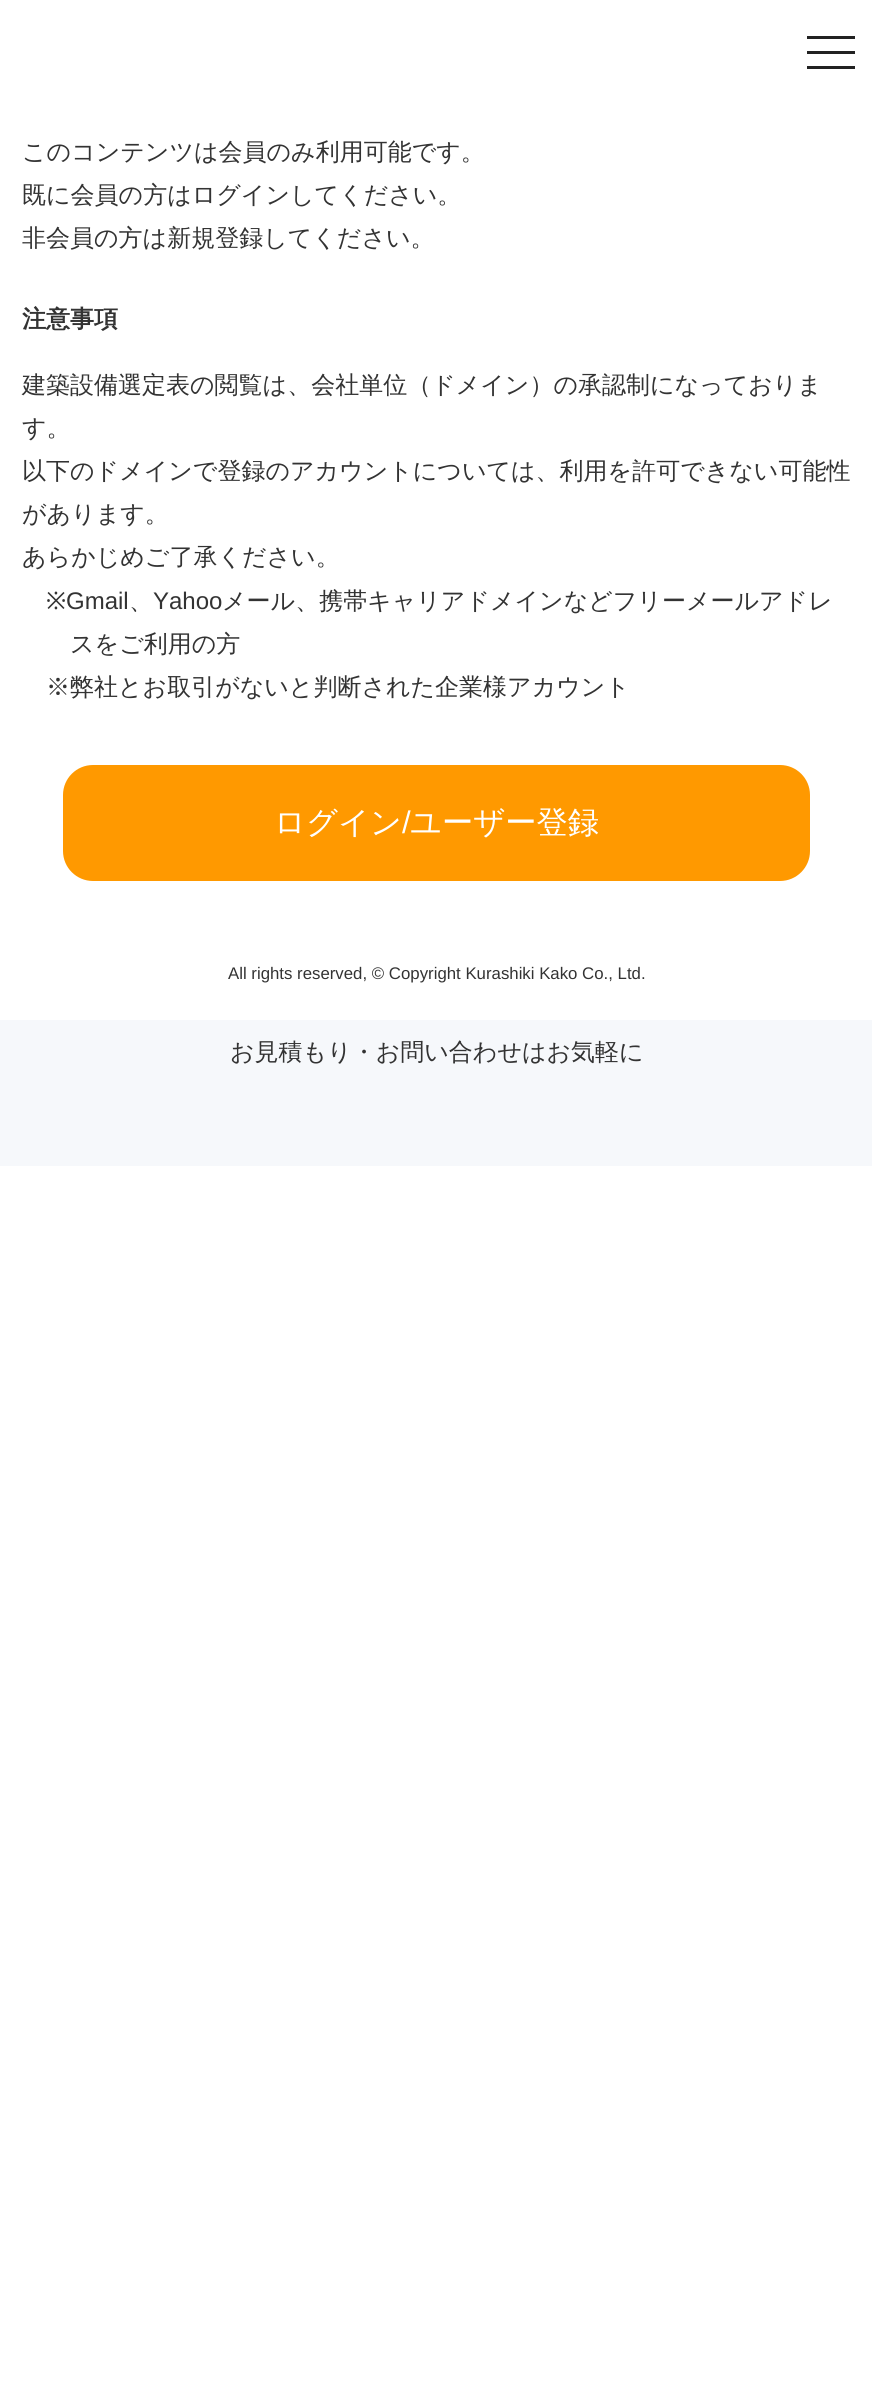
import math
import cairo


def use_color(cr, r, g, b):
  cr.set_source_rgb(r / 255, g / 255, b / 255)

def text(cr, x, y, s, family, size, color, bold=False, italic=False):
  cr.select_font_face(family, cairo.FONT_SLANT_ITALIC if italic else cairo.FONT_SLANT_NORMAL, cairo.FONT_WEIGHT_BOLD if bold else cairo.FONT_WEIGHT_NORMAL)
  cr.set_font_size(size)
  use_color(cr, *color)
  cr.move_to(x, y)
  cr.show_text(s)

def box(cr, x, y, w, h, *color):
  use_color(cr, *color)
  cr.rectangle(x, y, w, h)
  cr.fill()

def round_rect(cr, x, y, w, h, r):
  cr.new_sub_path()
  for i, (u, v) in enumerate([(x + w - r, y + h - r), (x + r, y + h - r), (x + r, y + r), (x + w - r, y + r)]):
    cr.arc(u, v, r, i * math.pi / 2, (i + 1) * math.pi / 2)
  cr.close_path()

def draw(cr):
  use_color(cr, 255, 255, 255)
  cr.paint()
  box(cr, 807, 51, 48, 3, 34, 34, 34)
  box(cr, 807, 36, 48, 3, 34, 34, 34)
  box(cr, 807, 66, 48, 3, 34, 34, 34)
  use_color(cr, 255, 153, 0)
  round_rect(cr, 63, 765, 747, 116, 30)
  cr.fill()
  box(cr, 0, 1020, 872, 146, 246, 248, 251)
  text(cr, 22, 160, "このコンテンツは会員のみ利用可能です。", "WenQuanYi Zen Hei Medium", 24, (51, 51, 51))
  text(cr, 22, 203, "既に会員の方はログインしてください。", "WenQuanYi Zen Hei Medium", 24, (51, 51, 51))
  text(cr, 22, 246, "非会員の方は新規登録してください。", "WenQuanYi Zen Hei Medium", 24, (51, 51, 51))
  text(cr, 22, 327, "注意事項", "WenQuanYi Zen Hei", 24, (51, 51, 51), bold=True)
  text(cr, 22, 393, "建築設備選定表の閲覧は、会社単位（ドメイン）の承認制になっておりま", "WenQuanYi Zen Hei Medium", 24, (51, 51, 51))
  text(cr, 22, 436, "す。", "WenQuanYi Zen Hei Medium", 24, (51, 51, 51))
  text(cr, 22, 479, "以下のドメインで登録のアカウントについては、利用を許可できない可能性", "WenQuanYi Zen Hei Medium", 24, (51, 51, 51))
  text(cr, 22, 522, "があります。", "WenQuanYi Zen Hei Medium", 24, (51, 51, 51))
  text(cr, 22, 565, "あらかじめご了承ください。", "WenQuanYi Zen Hei Medium", 24, (51, 51, 51))
  text(cr, 46, 609, "※", "Noto Sans", 24, (51, 51, 51))
  text(cr, 66, 609, "Gmail", "Liberation Sans", 24, (51, 51, 51))
  text(cr, 129, 609, "、", "WenQuanYi Zen Hei Medium", 24, (51, 51, 51))
  text(cr, 153, 609, "Yahoo", "Liberation Sans", 24, (51, 51, 51))
  text(cr, 222, 609, "メール、携帯キャリアドメインなどフリーメールアドレ", "WenQuanYi Zen Hei Medium", 24, (51, 51, 51))
  text(cr, 70, 652, "スをご利用の方", "WenQuanYi Zen Hei Medium", 24, (51, 51, 51))
  text(cr, 46, 695, "※弊社とお取引がないと判断された企業様アカウント", "WenQuanYi Zen Hei Medium", 24, (51, 51, 51))
  text(cr, 274, 833, "ログイン", "WenQuanYi Zen Hei Medium", 31.25, (255, 255, 255))
  text(cr, 402, 833, "/", "Liberation Sans", 31.25, (255, 255, 255))
  text(cr, 410, 833, "ユーザー登録", "WenQuanYi Zen Hei Medium", 31.25, (255, 255, 255))
  text(cr, 228, 979, "All rights reserved, © Copyright Kurashiki Kako Co., Ltd.", "Liberation Sans", 16.8, (51, 51, 51))
  text(cr, 230, 1060, "お見積もり・お問い合わせはお気軽に", "WenQuanYi Zen Hei Medium", 24, (51, 51, 51))


surface = cairo.ImageSurface(cairo.FORMAT_RGB24, 872, 2390)
cr = cairo.Context(surface)
options = cairo.FontOptions()
options.set_hint_metrics(cairo.HINT_METRICS_OFF)
options.set_hint_style(cairo.HINT_STYLE_NONE)
cr.set_font_options(options)
cr.set_miter_limit(4)
draw(cr)
surface.write_to_png("out.png")
